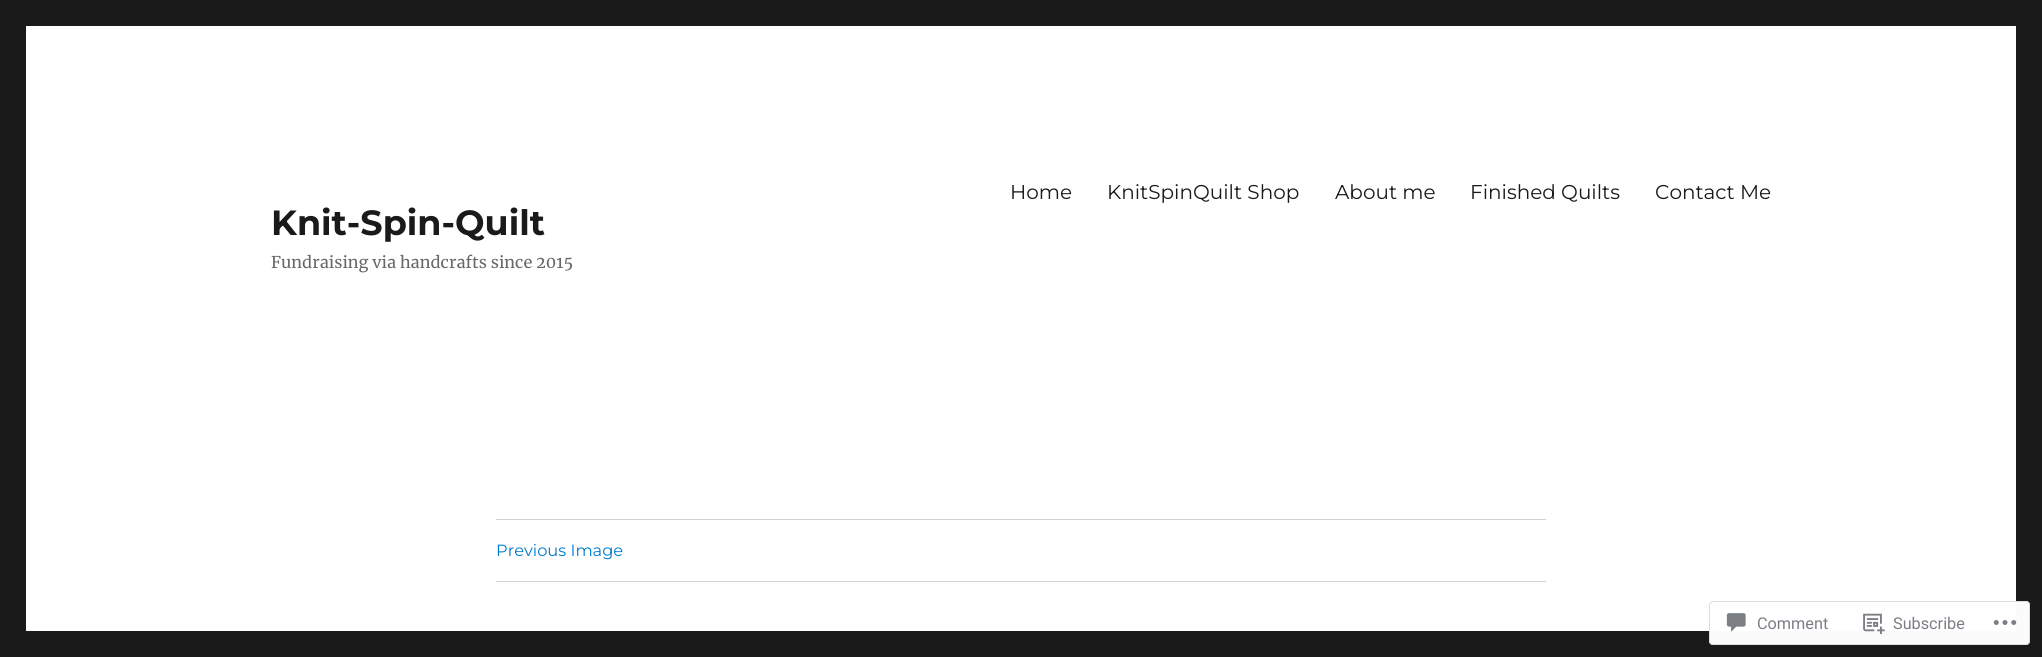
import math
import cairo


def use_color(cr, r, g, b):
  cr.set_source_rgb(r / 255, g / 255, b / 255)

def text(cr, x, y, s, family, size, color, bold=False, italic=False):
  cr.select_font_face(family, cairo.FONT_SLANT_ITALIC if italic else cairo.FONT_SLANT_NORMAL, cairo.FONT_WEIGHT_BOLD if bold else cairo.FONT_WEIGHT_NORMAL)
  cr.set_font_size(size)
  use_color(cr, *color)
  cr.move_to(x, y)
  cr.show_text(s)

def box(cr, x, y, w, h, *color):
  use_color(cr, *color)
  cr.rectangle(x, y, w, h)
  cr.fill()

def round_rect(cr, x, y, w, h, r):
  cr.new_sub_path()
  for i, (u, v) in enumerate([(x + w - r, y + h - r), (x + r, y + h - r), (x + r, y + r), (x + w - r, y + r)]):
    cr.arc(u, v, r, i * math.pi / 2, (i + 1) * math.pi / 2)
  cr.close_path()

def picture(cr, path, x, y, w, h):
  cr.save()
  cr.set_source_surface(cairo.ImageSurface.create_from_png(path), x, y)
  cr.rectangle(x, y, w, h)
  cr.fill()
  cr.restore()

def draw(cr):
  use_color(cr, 26, 26, 26)
  cr.paint()
  box(cr, 26, 26, 1990, 605, 255, 255, 255)
  box(cr, 496, 519, 1050, 1, 209, 209, 209)
  box(cr, 496, 581, 1050, 1, 209, 209, 209)
  cr.set_source_rgba(1, 1, 1, 0.98)
  round_rect(cr, 1709, 601, 321, 44, 4)
  cr.fill()
  round_rect(cr, 1709.5, 601.5, 320, 43, 3.5)
  cr.set_source_rgba(0.863, 0.863, 0.871, 0.98)
  cr.set_line_width(1)
  cr.stroke()
  picture(cr, "img_01.png", 1726, 613, 20, 19)
  picture(cr, "img_02.png", 1863, 613, 22, 22)
  picture(cr, "img_03.png", 1993, 620, 24, 5)
  text(cr, 1010, 199, "Home", "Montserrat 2 Thin", 20, (26, 26, 26))
  text(cr, 1107, 199, "KnitSpinQuilt Shop", "Montserrat 2 Thin", 20, (26, 26, 26))
  text(cr, 1335, 199, "About me", "Montserrat 2 Thin", 20, (26, 26, 26))
  text(cr, 1470, 199, "Finished Quilts", "Montserrat 2 Thin", 20, (26, 26, 26))
  text(cr, 1655, 199, "Contact Me", "Montserrat 2 Thin", 20, (26, 26, 26))
  text(cr, 271, 235, "Knit-Spin-Quilt", "Montserrat Thin", 35, (26, 26, 26))
  text(cr, 271, 268, "Fundraising via handcrafts since 2015", "Merriweather", 16.25, (104, 104, 104))
  text(cr, 496, 556, "Previous Image", "Montserrat 2 Thin", 16.25, (0, 122, 204))
  text(cr, 1757, 629, "Comment", "Roboto", 16.25, (123, 127, 133))
  text(cr, 1893, 629, "Subscribe", "Roboto", 16.25, (123, 127, 133))


surface = cairo.ImageSurface(cairo.FORMAT_RGB24, 2042, 657)
cr = cairo.Context(surface)
options = cairo.FontOptions()
options.set_hint_metrics(cairo.HINT_METRICS_OFF)
options.set_hint_style(cairo.HINT_STYLE_NONE)
cr.set_font_options(options)
cr.set_miter_limit(4)
draw(cr)
surface.write_to_png("out.png")
